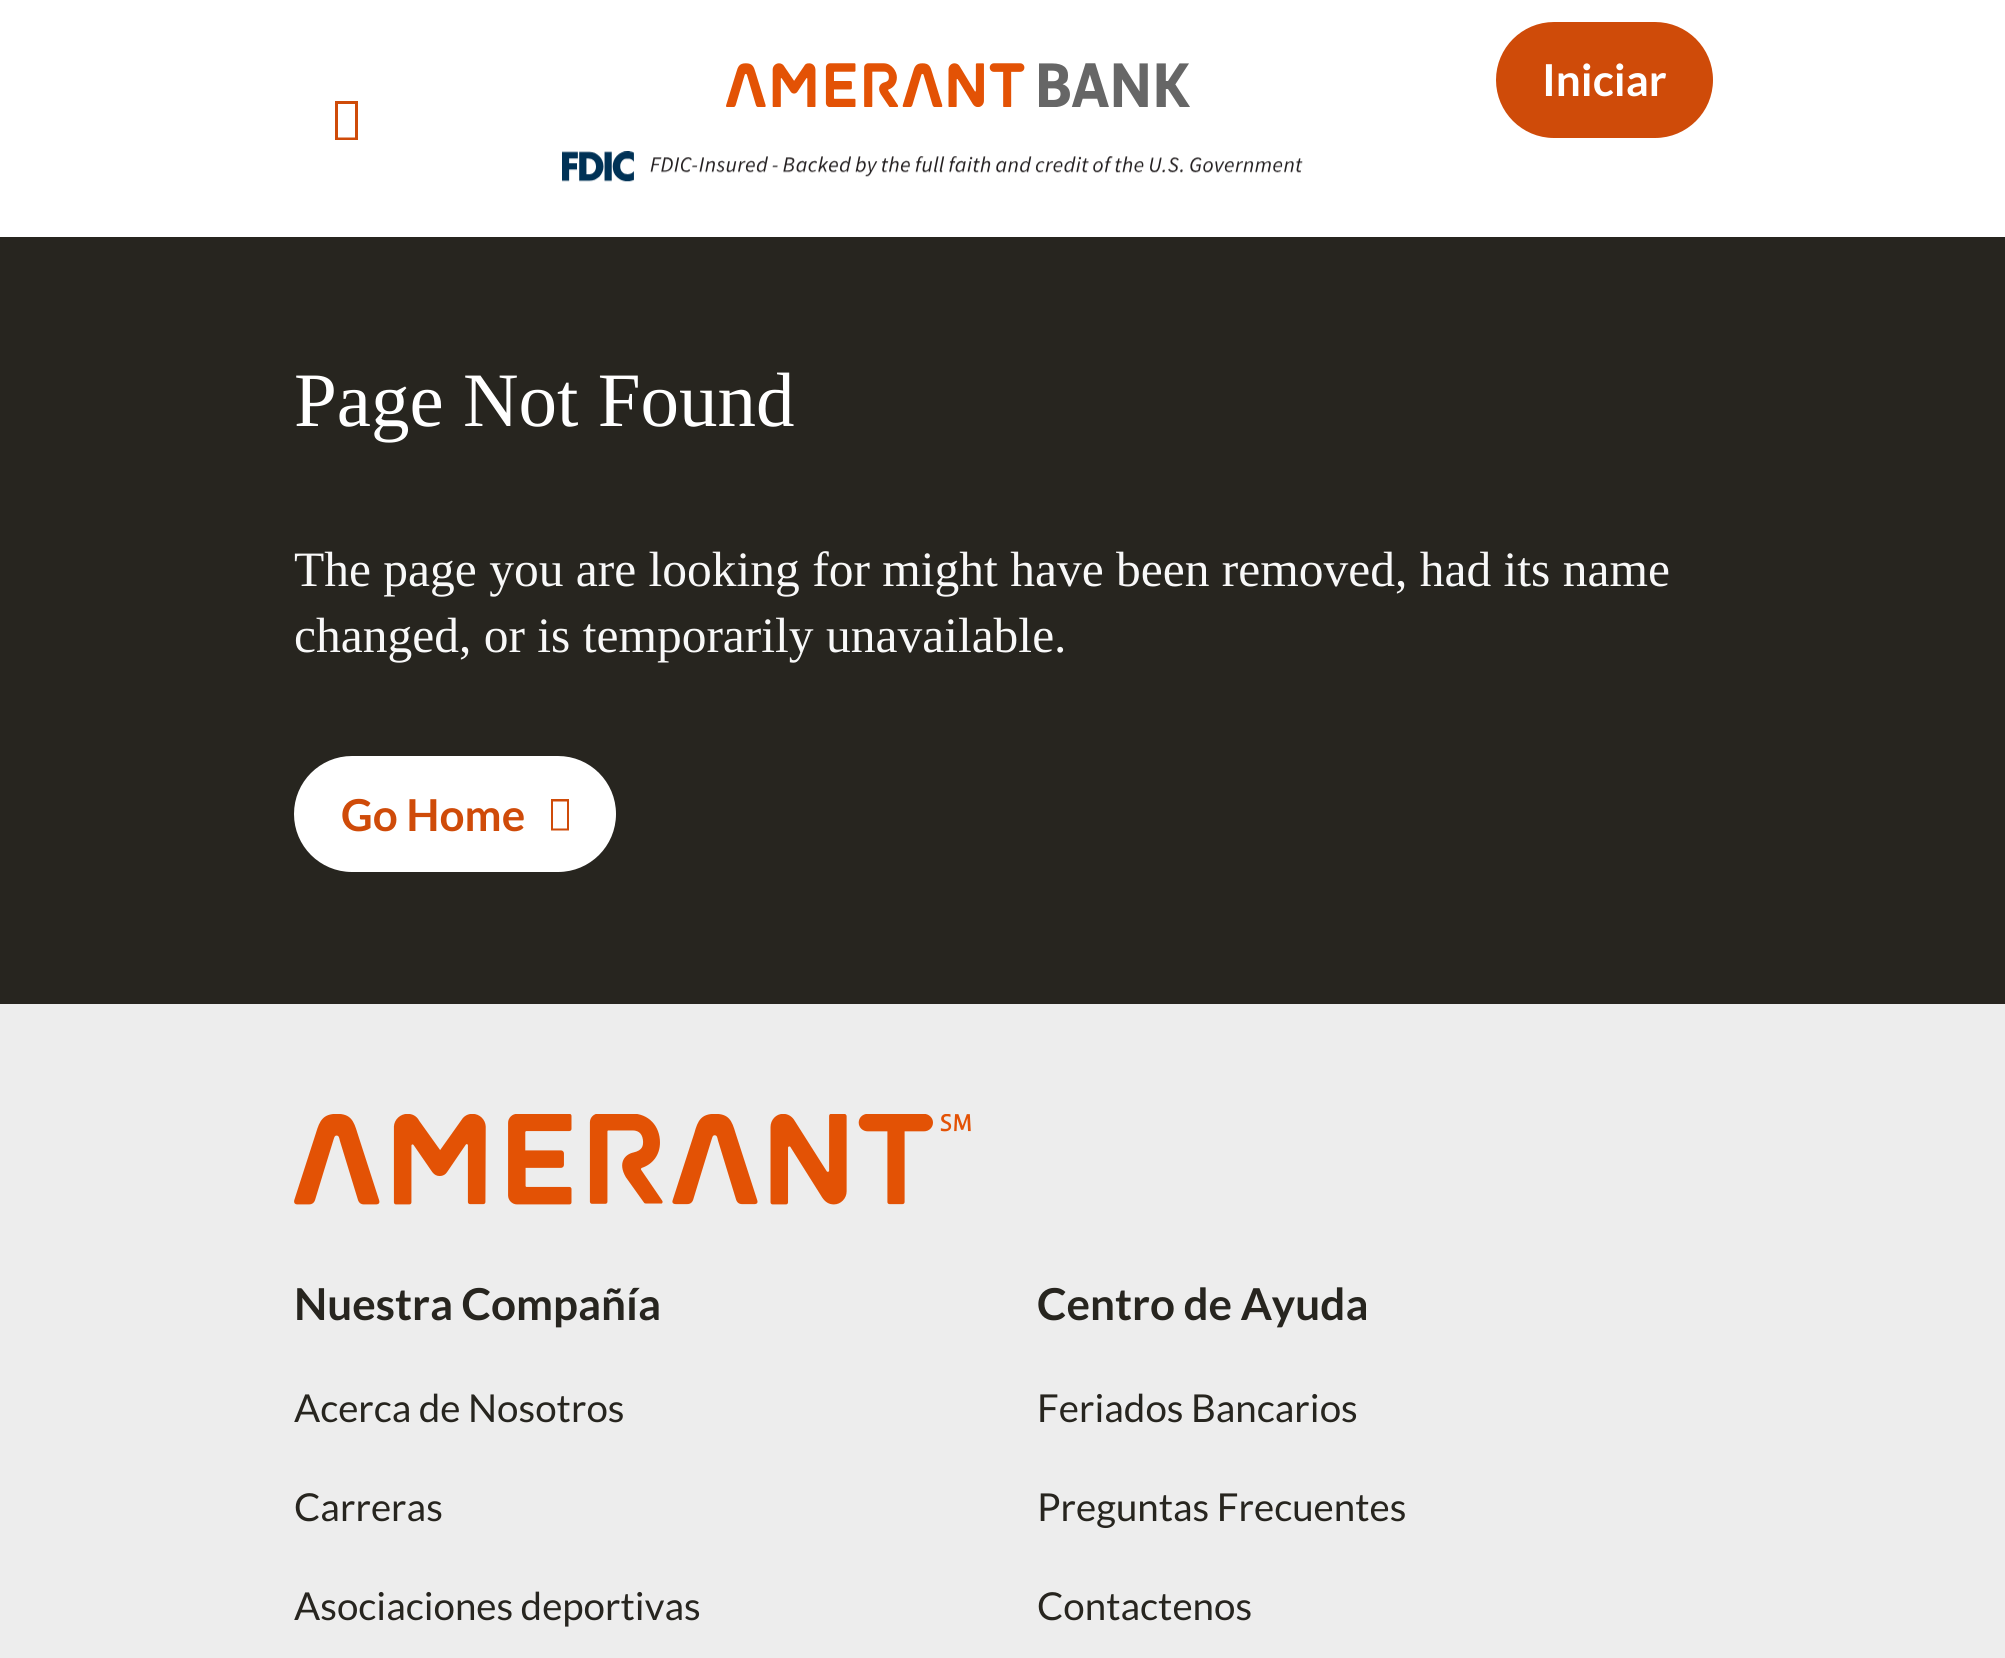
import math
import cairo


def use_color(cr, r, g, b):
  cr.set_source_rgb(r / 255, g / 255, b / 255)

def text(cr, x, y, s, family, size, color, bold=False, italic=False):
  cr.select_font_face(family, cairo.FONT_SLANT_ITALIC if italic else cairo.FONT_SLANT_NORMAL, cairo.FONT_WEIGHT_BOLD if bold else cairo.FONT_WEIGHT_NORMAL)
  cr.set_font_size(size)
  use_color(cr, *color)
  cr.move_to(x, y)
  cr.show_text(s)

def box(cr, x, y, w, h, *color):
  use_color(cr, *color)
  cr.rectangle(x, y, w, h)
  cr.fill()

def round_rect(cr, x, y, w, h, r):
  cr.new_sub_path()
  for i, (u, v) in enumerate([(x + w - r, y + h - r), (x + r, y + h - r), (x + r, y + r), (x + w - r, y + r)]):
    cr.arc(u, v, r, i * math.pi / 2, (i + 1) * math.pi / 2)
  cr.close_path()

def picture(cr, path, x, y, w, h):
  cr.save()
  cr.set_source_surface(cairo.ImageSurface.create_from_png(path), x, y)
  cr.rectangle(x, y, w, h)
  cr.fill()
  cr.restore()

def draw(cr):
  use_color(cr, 39, 37, 31)
  cr.paint()
  box(cr, 0, 0, 2005, 237, 255, 255, 255)
  picture(cr, "img_01.png", 726, 63, 464, 44)
  picture(cr, "img_02.png", 562, 151, 741, 31)
  use_color(cr, 207, 75, 9)
  round_rect(cr, 1497.5, 23.5, 214, 113, 56.5)
  cr.fill_preserve()
  cr.set_line_width(3)
  cr.stroke()
  cr.new_path()
  cr.move_to(335, 140)
  cr.line_to(335, 101)
  cr.line_to(358, 101)
  cr.line_to(358, 140)
  cr.close_path()
  cr.move_to(338, 137.5)
  cr.line_to(355, 137.5)
  cr.line_to(355, 104)
  cr.line_to(338, 104)
  cr.close_path()
  cr.fill()
  use_color(cr, 255, 255, 255)
  round_rect(cr, 295.5, 757.5, 319, 113, 56.5)
  cr.fill_preserve()
  cr.stroke()
  use_color(cr, 207, 75, 9)
  cr.new_path()
  cr.move_to(551, 830.5)
  cr.line_to(551, 799)
  cr.line_to(569, 799)
  cr.line_to(569, 830.5)
  cr.close_path()
  cr.move_to(553, 828.5)
  cr.line_to(567, 828.5)
  cr.line_to(567, 801.5)
  cr.line_to(553, 801.5)
  cr.close_path()
  cr.fill()
  box(cr, 0, 1004, 2005, 654, 237, 237, 237)
  picture(cr, "img_03.png", 294, 1114, 677, 91)
  text(cr, 1542, 96, "Iniciar", "Lato", 44, (255, 255, 255), bold=True)
  text(cr, 294, 426, "Page Not Found", "Liberation Serif", 77, (255, 255, 255))
  text(cr, 294, 586, "The page you are looking for might have been removed, had its name", "Liberation Serif", 49.5, (248, 248, 248))
  text(cr, 294, 652, "changed, or is temporarily unavailable.", "Liberation Serif", 49.5, (248, 248, 248))
  text(cr, 341, 831, "Go Home", "Lato", 44, (207, 75, 9), bold=True)
  text(cr, 294, 1320, "Nuestra Compañía", "Lato", 44, (39, 37, 31), bold=True)
  text(cr, 294, 1422, "Acerca de Nosotros", "Lato", 38.5, (39, 37, 31))
  text(cr, 294, 1521, "Carreras", "Lato", 38.5, (39, 37, 31))
  text(cr, 294, 1620, "Asociaciones deportivas", "Lato", 38.5, (39, 37, 31))
  text(cr, 1037, 1320, "Centro de Ayuda", "Lato", 44, (39, 37, 31), bold=True)
  text(cr, 1037, 1422, "Feriados Bancarios", "Lato", 38.5, (39, 37, 31))
  text(cr, 1037, 1521, "Preguntas Frecuentes", "Lato", 38.5, (39, 37, 31))
  text(cr, 1037, 1620, "Contactenos", "Lato", 38.5, (39, 37, 31))


surface = cairo.ImageSurface(cairo.FORMAT_RGB24, 2005, 1658)
cr = cairo.Context(surface)
options = cairo.FontOptions()
options.set_hint_metrics(cairo.HINT_METRICS_OFF)
options.set_hint_style(cairo.HINT_STYLE_NONE)
cr.set_font_options(options)
cr.set_miter_limit(4)
draw(cr)
surface.write_to_png("out.png")
